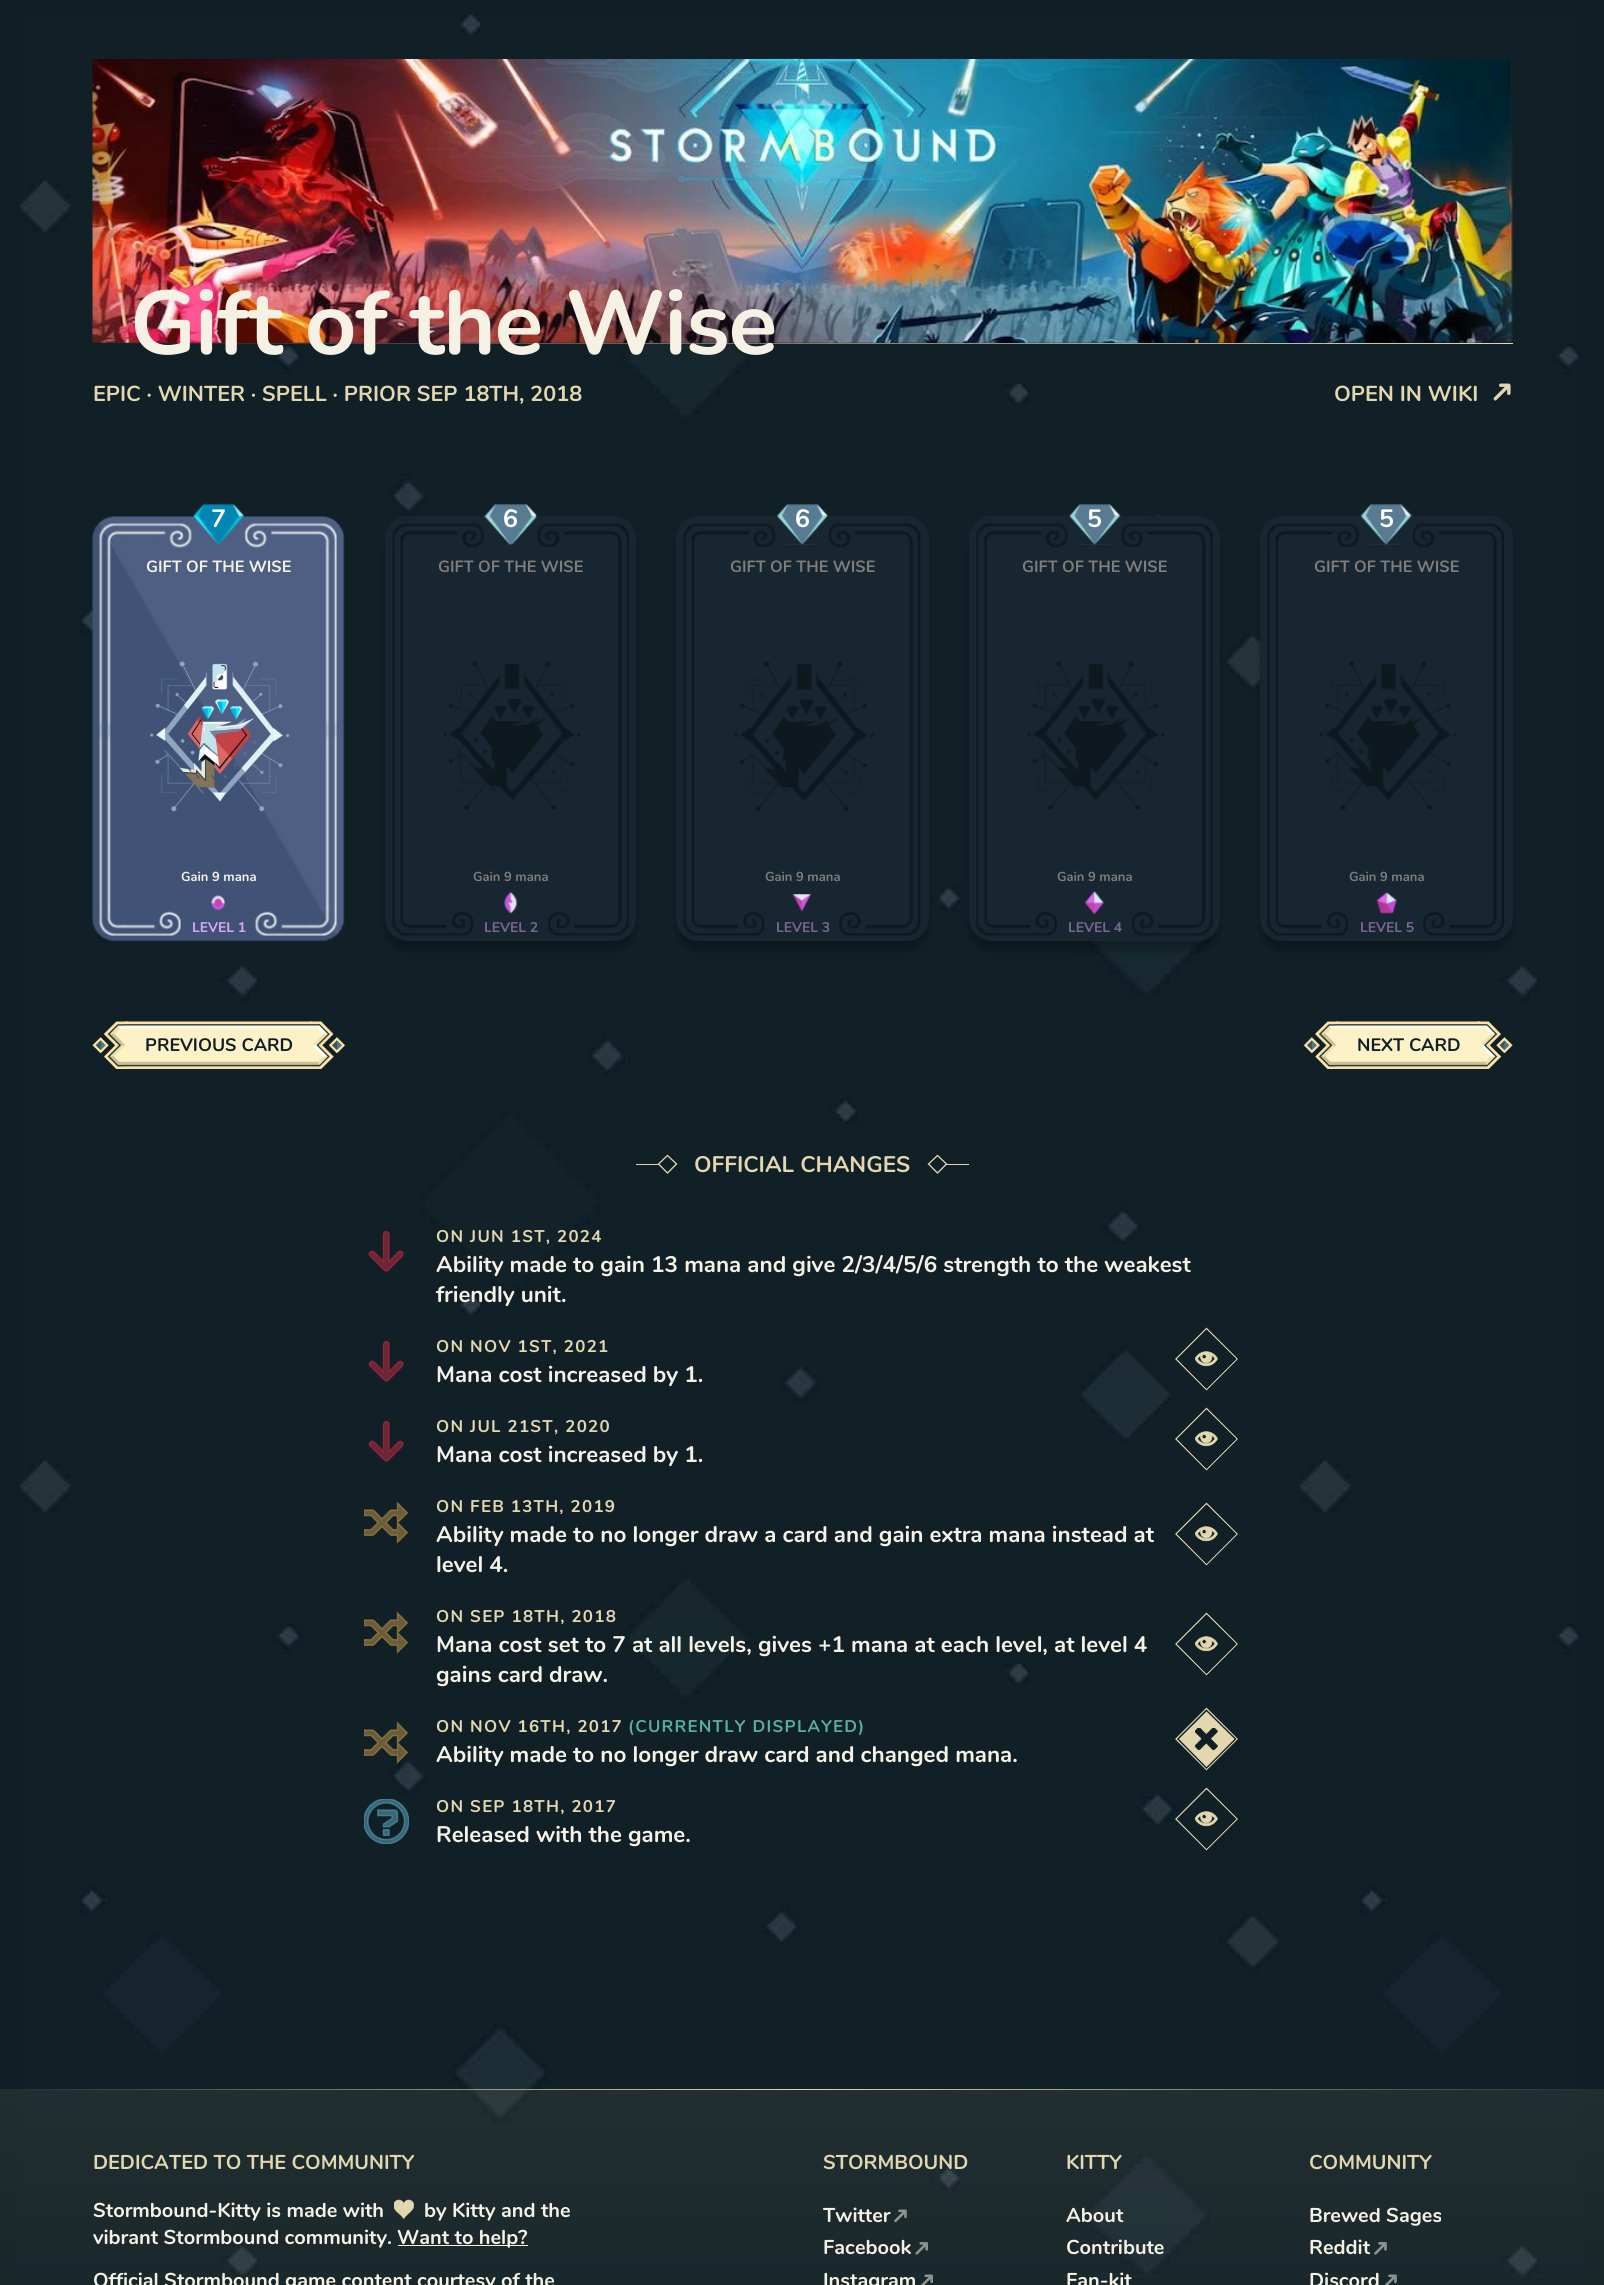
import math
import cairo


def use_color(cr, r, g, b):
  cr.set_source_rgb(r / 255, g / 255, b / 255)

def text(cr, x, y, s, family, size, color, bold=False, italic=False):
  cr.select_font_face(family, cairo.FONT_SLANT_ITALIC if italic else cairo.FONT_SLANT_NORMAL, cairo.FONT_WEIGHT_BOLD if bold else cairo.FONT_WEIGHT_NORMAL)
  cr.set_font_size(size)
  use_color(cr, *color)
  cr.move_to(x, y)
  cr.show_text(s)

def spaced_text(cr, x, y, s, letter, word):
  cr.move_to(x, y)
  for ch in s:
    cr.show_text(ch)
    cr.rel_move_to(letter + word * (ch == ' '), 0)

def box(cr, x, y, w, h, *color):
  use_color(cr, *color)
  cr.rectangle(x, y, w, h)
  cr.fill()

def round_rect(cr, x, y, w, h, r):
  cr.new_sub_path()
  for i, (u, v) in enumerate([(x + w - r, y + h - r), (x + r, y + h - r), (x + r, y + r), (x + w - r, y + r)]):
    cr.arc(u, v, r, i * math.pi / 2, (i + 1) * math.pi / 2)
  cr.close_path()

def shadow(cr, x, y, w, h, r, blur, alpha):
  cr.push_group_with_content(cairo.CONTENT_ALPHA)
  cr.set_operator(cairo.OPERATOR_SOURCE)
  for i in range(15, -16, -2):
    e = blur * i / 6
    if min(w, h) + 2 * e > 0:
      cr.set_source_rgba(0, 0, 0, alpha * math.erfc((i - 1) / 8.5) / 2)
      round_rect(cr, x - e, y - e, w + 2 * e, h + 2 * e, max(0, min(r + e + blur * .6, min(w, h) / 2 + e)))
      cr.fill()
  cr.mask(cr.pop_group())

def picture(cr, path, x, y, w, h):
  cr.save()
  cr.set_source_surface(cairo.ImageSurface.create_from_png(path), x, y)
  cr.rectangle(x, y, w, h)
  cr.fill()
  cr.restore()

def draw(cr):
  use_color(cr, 16, 31, 38)
  cr.paint()
  picture(cr, "img_01.png", 20, 14, 1560, 2263)
  picture(cr, "img_02.png", 92, 59, 1421, 284)
  picture(cr, "img_03.png", 1493, 383, 18, 18)
  picture(cr, "img_04.png", 92, 516, 253, 426)
  picture(cr, "img_05.png", 193, 504, 52, 41)
  picture(cr, "img_06.png", 149, 661, 141, 151)
  picture(cr, "img_07.png", 211, 895, 14, 15)
  use_color(cr, 0, 0, 0)
  shadow(cr, 385, 526, 251, 425, 23, 3.5, 0.25)
  use_color(cr, 23, 38, 48)
  round_rect(cr, 385, 516, 251, 425, 23)
  cr.fill()
  picture(cr, "img_08.png", 392, 523, 237, 413)
  picture(cr, "img_09.png", 484, 504, 53, 41)
  picture(cr, "img_10.png", 443, 661, 138, 149)
  picture(cr, "img_11.png", 504, 892, 14, 22)
  use_color(cr, 0, 0, 0)
  shadow(cr, 676, 526, 253, 425, 23, 3.5, 0.25)
  use_color(cr, 23, 38, 48)
  round_rect(cr, 676, 516, 253, 425, 23)
  cr.fill()
  picture(cr, "img_12.png", 683, 523, 238, 413)
  picture(cr, "img_13.png", 776, 504, 52, 41)
  picture(cr, "img_14.png", 734, 661, 140, 150)
  picture(cr, "img_15.png", 792, 894, 20, 18)
  use_color(cr, 0, 0, 0)
  shadow(cr, 969, 526, 251, 425, 23, 3.5, 0.25)
  use_color(cr, 23, 38, 48)
  round_rect(cr, 969, 516, 251, 425, 23)
  cr.fill()
  picture(cr, "img_16.png", 976, 523, 237, 413)
  picture(cr, "img_17.png", 1069, 504, 52, 41)
  picture(cr, "img_18.png", 1027, 661, 138, 149)
  picture(cr, "img_19.png", 1084, 891, 21, 24)
  use_color(cr, 0, 0, 0)
  shadow(cr, 1260, 526, 253, 425, 23, 3.5, 0.25)
  use_color(cr, 23, 38, 48)
  round_rect(cr, 1260, 516, 253, 425, 23)
  cr.fill()
  picture(cr, "img_20.png", 1267, 523, 237, 413)
  picture(cr, "img_21.png", 1360, 504, 52, 41)
  picture(cr, "img_22.png", 1319, 661, 138, 149)
  picture(cr, "img_23.png", 1376, 892, 21, 22)
  picture(cr, "img_24.png", 92, 1021, 253, 48)
  picture(cr, "img_25.png", 125, 1021, 188, 48)
  picture(cr, "img_26.png", 1303, 1021, 210, 48)
  picture(cr, "img_27.png", 1336, 1021, 144, 48)
  box(cr, 636, 1164, 23, 1, 226, 215, 175)
  cr.new_path()
  cr.move_to(667.5, 1155.5)
  cr.line_to(676.5, 1164)
  cr.line_to(667.5, 1173)
  cr.line_to(658.5, 1164)
  cr.close_path()
  cr.set_line_width(1.3)
  cr.stroke()
  cr.new_path()
  cr.move_to(937.5, 1155.5)
  cr.line_to(946.5, 1164)
  cr.line_to(937.5, 1173)
  cr.line_to(928.5, 1164)
  cr.close_path()
  cr.stroke()
  box(cr, 946, 1164, 23, 1, 226, 215, 175)
  picture(cr, "img_28.png", 368, 1230, 36, 42)
  picture(cr, "img_28.png", 368, 1340, 36, 42)
  cr.new_path()
  cr.move_to(1206.5, 1328.5)
  cr.line_to(1237, 1359)
  cr.line_to(1206.5, 1389.5)
  cr.line_to(1176, 1359)
  cr.close_path()
  cr.stroke()
  cr.new_path()
  cr.move_to(1206.5, 1330.5)
  cr.line_to(1235.5, 1359)
  cr.line_to(1206.5, 1388)
  cr.line_to(1178, 1359)
  cr.close_path()
  use_color(cr, 16, 31, 38)
  cr.stroke()
  picture(cr, "img_29.png", 1195, 1351, 23, 16)
  picture(cr, "img_28.png", 368, 1420, 36, 42)
  cr.new_path()
  cr.move_to(1206.5, 1408.5)
  cr.line_to(1237, 1439)
  cr.line_to(1206.5, 1469.5)
  cr.line_to(1176, 1439)
  cr.close_path()
  use_color(cr, 226, 215, 175)
  cr.stroke()
  cr.new_path()
  cr.move_to(1206.5, 1410.5)
  cr.line_to(1235.5, 1439)
  cr.line_to(1206.5, 1468)
  cr.line_to(1178, 1439)
  cr.close_path()
  use_color(cr, 16, 31, 38)
  cr.stroke()
  picture(cr, "img_29.png", 1195, 1431, 23, 16)
  picture(cr, "img_30.png", 364, 1501, 45, 43)
  cr.new_path()
  cr.move_to(1206.5, 1503.5)
  cr.line_to(1237, 1534)
  cr.line_to(1206.5, 1564.5)
  cr.line_to(1176, 1534)
  cr.close_path()
  use_color(cr, 226, 215, 175)
  cr.stroke()
  cr.new_path()
  cr.move_to(1206.5, 1505.5)
  cr.line_to(1235.5, 1534)
  cr.line_to(1206.5, 1563)
  cr.line_to(1178, 1534)
  cr.close_path()
  use_color(cr, 16, 31, 38)
  cr.stroke()
  picture(cr, "img_29.png", 1195, 1526, 23, 16)
  picture(cr, "img_30.png", 364, 1611, 45, 43)
  cr.new_path()
  cr.move_to(1206.5, 1613.5)
  cr.line_to(1237, 1644)
  cr.line_to(1206.5, 1674.5)
  cr.line_to(1176, 1644)
  cr.close_path()
  use_color(cr, 226, 215, 175)
  cr.stroke()
  cr.new_path()
  cr.move_to(1206.5, 1615.5)
  cr.line_to(1235.5, 1644)
  cr.line_to(1206.5, 1673)
  cr.line_to(1178, 1644)
  cr.close_path()
  use_color(cr, 16, 31, 38)
  cr.stroke()
  picture(cr, "img_29.png", 1195, 1636, 23, 16)
  picture(cr, "img_31.png", 364, 1721, 45, 43)
  cr.new_path()
  cr.move_to(1206.5, 1708.5)
  cr.line_to(1237, 1739)
  cr.line_to(1206.5, 1769.5)
  cr.line_to(1176, 1739)
  cr.close_path()
  use_color(cr, 226, 215, 175)
  cr.stroke()
  cr.new_path()
  cr.move_to(1207, 1710)
  cr.line_to(1236, 1739)
  cr.line_to(1207, 1769)
  cr.line_to(1177, 1739)
  cr.close_path()
  cr.fill()
  cr.new_path()
  cr.move_to(1206.5, 1710.5)
  cr.line_to(1235.5, 1739)
  cr.line_to(1206.5, 1768)
  cr.line_to(1178, 1739)
  cr.close_path()
  use_color(cr, 16, 31, 38)
  cr.stroke()
  picture(cr, "img_32.png", 1195, 1728, 23, 22)
  picture(cr, "img_33.png", 364, 1799, 45, 45)
  cr.new_path()
  cr.move_to(1206.5, 1788.5)
  cr.line_to(1237, 1819)
  cr.line_to(1206.5, 1849.5)
  cr.line_to(1176, 1819)
  cr.close_path()
  use_color(cr, 226, 215, 175)
  cr.stroke()
  cr.new_path()
  cr.move_to(1206.5, 1790.5)
  cr.line_to(1235.5, 1819)
  cr.line_to(1206.5, 1848)
  cr.line_to(1178, 1819)
  cr.close_path()
  use_color(cr, 16, 31, 38)
  cr.stroke()
  picture(cr, "img_29.png", 1195, 1811, 23, 16)
  gradient = cairo.LinearGradient(803, 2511, 803, 2089)
  gradient.add_color_stop_rgba(0, 0.871, 0.843, 0.643, 0)
  gradient.add_color_stop_rgba(1, 0.871, 0.843, 0.643, 0.08)
  cr.set_source(gradient)
  cr.rectangle(0, 2089, 1604, 196)
  cr.fill()
  gradient = cairo.LinearGradient(0, 2089, 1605, 2089)
  gradient.add_color_stop_rgba(0, 0.886, 0.843, 0.686, 0)
  gradient.add_color_stop_rgba(0.5, 0.886, 0.843, 0.686, 1)
  gradient.add_color_stop_rgba(1, 0.886, 0.843, 0.686, 0)
  cr.set_source(gradient)
  cr.rectangle(17, 2089, 1571, 1)
  cr.fill()
  picture(cr, "img_34.png", 394, 2199, 20, 20)
  box(cr, 398, 2245, 130, 1, 245, 242, 229)
  picture(cr, "img_35.png", 894, 2209, 13, 14)
  picture(cr, "img_36.png", 915, 2242, 13, 13)
  picture(cr, "img_37.png", 921, 2274, 12, 11)
  picture(cr, "img_38.png", 1374, 2242, 13, 13)
  picture(cr, "img_39.png", 1384, 2274, 13, 11)
  cr.select_font_face("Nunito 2", cairo.FONT_SLANT_NORMAL, cairo.FONT_WEIGHT_BOLD)
  cr.set_font_size(90)
  spaced_text(cr, 130, 354, "Gift of the Wise", -1.25, 0)
  text(cr, 93, 401, "EPIC · WINTER · SPELL · PRIOR SEP 18TH, 2018", "Nunito", 21.6, (226, 215, 175), bold=True)
  text(cr, 1334, 401, "OPEN IN WIKI", "Nunito", 21.6, (226, 215, 175), bold=True)
  text(cr, 211, 527, "7", "Nunito", 25, (245, 242, 229), bold=True)
  text(cr, 146, 572, "GIFT OF THE WISE", "Nunito", 16.25, (245, 242, 229), bold=True)
  text(cr, 181, 881, "Gain", "Nunito", 13, (245, 242, 229), bold=True)
  text(cr, 212, 881, "9 mana", "Nunito 2", 13, (245, 242, 229), bold=True)
  text(cr, 192, 932, "LEVEL 1", "Nunito", 14, (219, 168, 245), bold=True)
  text(cr, 503, 527, "6", "Nunito", 25, (255, 255, 255), bold=True)
  text(cr, 438, 572, "GIFT OF THE WISE", "Nunito", 16.25, (125, 125, 125), bold=True)
  text(cr, 473, 881, "Gain", "Nunito", 13, (125, 125, 125), bold=True)
  text(cr, 504, 881, "9 mana", "Nunito 2", 13, (125, 125, 125), bold=True)
  text(cr, 484, 932, "LEVEL 2", "Nunito", 14, (121, 103, 147), bold=True)
  text(cr, 795, 527, "6", "Nunito", 25, (255, 255, 255), bold=True)
  text(cr, 730, 572, "GIFT OF THE WISE", "Nunito", 16.25, (125, 125, 125), bold=True)
  text(cr, 765, 881, "Gain", "Nunito", 13, (125, 125, 125), bold=True)
  text(cr, 796, 881, "9 mana", "Nunito 2", 13, (125, 125, 125), bold=True)
  text(cr, 776, 932, "LEVEL 3", "Nunito", 14, (121, 103, 147), bold=True)
  text(cr, 1087, 527, "5", "Nunito", 25, (255, 255, 255), bold=True)
  text(cr, 1022, 572, "GIFT OF THE WISE", "Nunito", 16.25, (125, 125, 125), bold=True)
  text(cr, 1057, 881, "Gain", "Nunito", 13, (125, 125, 125), bold=True)
  text(cr, 1088, 881, "9 mana", "Nunito 2", 13, (125, 125, 125), bold=True)
  text(cr, 1068, 932, "LEVEL 4", "Nunito", 14, (121, 103, 147), bold=True)
  text(cr, 1379, 527, "5", "Nunito", 25, (255, 255, 255), bold=True)
  text(cr, 1314, 572, "GIFT OF THE WISE", "Nunito", 16.25, (125, 125, 125), bold=True)
  text(cr, 1349, 881, "Gain", "Nunito", 13, (125, 125, 125), bold=True)
  text(cr, 1380, 881, "9 mana", "Nunito 2", 13, (125, 125, 125), bold=True)
  text(cr, 1360, 932, "LEVEL 5", "Nunito", 14, (121, 103, 147), bold=True)
  text(cr, 145, 1051, "PREVIOUS CARD", "Nunito", 18, (16, 31, 38), bold=True)
  text(cr, 1357, 1051, "NEXT CARD", "Nunito", 18, (16, 31, 38), bold=True)
  text(cr, 694, 1172, "OFFICIAL CHANGES", "Nunito", 22.5, (226, 215, 175), bold=True)
  cr.set_font_size(16.9)
  spaced_text(cr, 436, 1242, "ON JUN 1ST, 2024", 1.25, 0)
  text(cr, 436, 1272, "Ability made to gain 13 mana and give 2/3/4/5/6 strength to the weakest", "Nunito", 22.5, (245, 242, 229), bold=True)
  text(cr, 436, 1302, "friendly unit.", "Nunito", 22.5, (245, 242, 229), bold=True)
  cr.set_font_size(16.9)
  use_color(cr, 226, 215, 175)
  spaced_text(cr, 436, 1352, "ON NOV 1ST, 2021", 1.25, 0)
  text(cr, 436, 1382, "Mana cost increased by 1.", "Nunito", 22.5, (245, 242, 229), bold=True)
  cr.set_font_size(16.9)
  use_color(cr, 226, 215, 175)
  spaced_text(cr, 436, 1432, "ON JUL 21ST, 2020", 1.25, 0)
  text(cr, 436, 1462, "Mana cost increased by 1.", "Nunito", 22.5, (245, 242, 229), bold=True)
  cr.set_font_size(16.9)
  use_color(cr, 226, 215, 175)
  spaced_text(cr, 436, 1512, "ON FEB 13TH, 2019", 1.25, 0)
  text(cr, 436, 1542, "Ability made to no longer draw a card and gain extra mana instead at", "Nunito", 22.5, (245, 242, 229), bold=True)
  text(cr, 436, 1572, "level 4.", "Nunito", 22.5, (245, 242, 229), bold=True)
  cr.set_font_size(16.9)
  use_color(cr, 226, 215, 175)
  spaced_text(cr, 436, 1622, "ON SEP 18TH, 2018", 1.25, 0)
  text(cr, 436, 1652, "Mana cost set to 7 at all levels, gives +1 mana at each level, at level 4", "Nunito", 22.5, (245, 242, 229), bold=True)
  text(cr, 436, 1682, "gains card draw.", "Nunito", 22.5, (245, 242, 229), bold=True)
  cr.set_font_size(16.9)
  use_color(cr, 226, 215, 175)
  spaced_text(cr, 436, 1732, "ON NOV 16TH, 2017", 1.25, 0)
  use_color(cr, 86, 175, 161)
  spaced_text(cr, 628, 1732, "(CURRENTLY DISPLAYED)", 1.25, 0)
  text(cr, 436, 1762, "Ability made to no longer draw card and changed mana.", "Nunito", 22.5, (245, 242, 229), bold=True)
  cr.set_font_size(16.9)
  use_color(cr, 226, 215, 175)
  spaced_text(cr, 436, 1812, "ON SEP 18TH, 2017", 1.25, 0)
  text(cr, 436, 1842, "Released with the game.", "Nunito", 22.5, (245, 242, 229), bold=True)
  text(cr, 93, 2169, "DEDICATED TO THE COMMUNITY", "Nunito", 20, (226, 215, 175), bold=True)
  text(cr, 93, 2217, "Stormbound-Kitty is made with", "Nunito", 20, (245, 242, 229), bold=True)
  text(cr, 424, 2217, "by Kitty and the", "Nunito", 20, (245, 242, 229), bold=True)
  text(cr, 93, 2244, "vibrant Stormbound community.", "Nunito", 20, (245, 242, 229), bold=True)
  text(cr, 397, 2244, "Want to help?", "Nunito", 20, (245, 242, 229), bold=True)
  text(cr, 93, 2287, "Official Stormbound game content courtesy of the", "Nunito", 20, (245, 242, 229), bold=True)
  text(cr, 823, 2169, "STORMBOUND", "Nunito", 20, (226, 215, 175), bold=True)
  text(cr, 823, 2222, "Twitter", "Nunito", 20, (245, 242, 229), bold=True)
  text(cr, 823, 2254, "Facebook", "Nunito", 20, (245, 242, 229), bold=True)
  text(cr, 823, 2287, "Instagram", "Nunito", 20, (245, 242, 229), bold=True)
  text(cr, 1066, 2169, "KITTY", "Nunito", 20, (226, 215, 175), bold=True)
  text(cr, 1066, 2222, "About", "Nunito", 20, (245, 242, 229), bold=True)
  text(cr, 1066, 2254, "Contribute", "Nunito", 20, (245, 242, 229), bold=True)
  text(cr, 1066, 2287, "Fan-kit", "Nunito", 20, (245, 242, 229), bold=True)
  text(cr, 1309, 2169, "COMMUNITY", "Nunito", 20, (226, 215, 175), bold=True)
  text(cr, 1309, 2222, "Brewed Sages", "Nunito", 20, (245, 242, 229), bold=True)
  text(cr, 1309, 2254, "Reddit", "Nunito", 20, (245, 242, 229), bold=True)
  text(cr, 1309, 2287, "Discord", "Nunito", 20, (245, 242, 229), bold=True)


surface = cairo.ImageSurface(cairo.FORMAT_RGB24, 1604, 2285)
cr = cairo.Context(surface)
options = cairo.FontOptions()
options.set_hint_metrics(cairo.HINT_METRICS_OFF)
options.set_hint_style(cairo.HINT_STYLE_NONE)
cr.set_font_options(options)
cr.set_miter_limit(4)
draw(cr)
surface.write_to_png("out.png")
